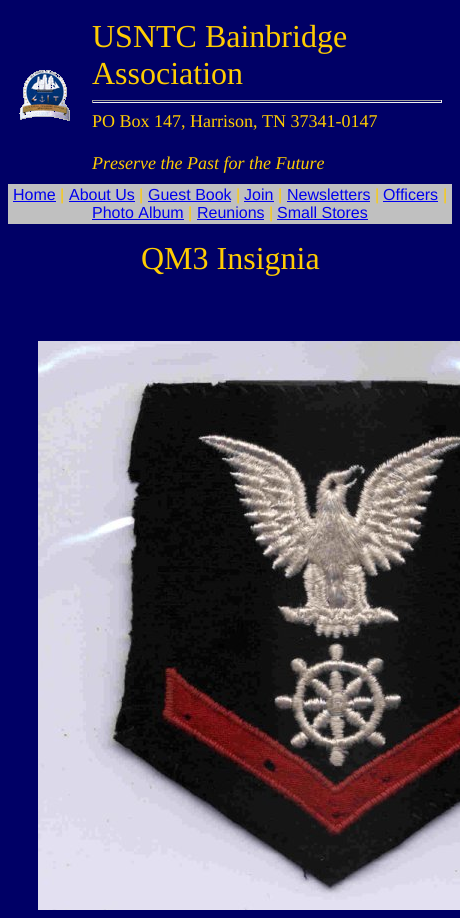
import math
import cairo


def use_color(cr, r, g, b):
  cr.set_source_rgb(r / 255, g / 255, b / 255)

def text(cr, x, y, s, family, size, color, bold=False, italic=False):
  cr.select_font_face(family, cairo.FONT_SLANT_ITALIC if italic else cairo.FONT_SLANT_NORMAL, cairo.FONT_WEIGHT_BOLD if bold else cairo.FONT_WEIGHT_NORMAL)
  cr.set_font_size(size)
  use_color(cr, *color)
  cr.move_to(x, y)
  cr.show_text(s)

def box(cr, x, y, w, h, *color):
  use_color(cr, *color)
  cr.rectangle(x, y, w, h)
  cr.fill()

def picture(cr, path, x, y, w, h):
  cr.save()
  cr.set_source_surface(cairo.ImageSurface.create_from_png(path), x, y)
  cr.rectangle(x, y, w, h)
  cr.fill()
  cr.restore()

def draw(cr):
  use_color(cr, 0, 0, 102)
  cr.paint()
  picture(cr, "img_01.png", 19, 70, 51, 51)
  box(cr, 92, 100, 350, 1, 159, 159, 159)
  box(cr, 441, 100, 1, 3, 238, 238, 238)
  box(cr, 92, 102, 350, 1, 238, 238, 238)
  box(cr, 92, 100, 1, 3, 159, 159, 159)
  box(cr, 8, 184, 444, 40, 192, 192, 192)
  box(cr, 13, 201, 43, 1, 0, 0, 238)
  box(cr, 69, 201, 66, 1, 0, 0, 238)
  box(cr, 148, 201, 83, 1, 0, 0, 238)
  box(cr, 244, 201, 30, 1, 0, 0, 238)
  box(cr, 287, 201, 83, 1, 0, 0, 238)
  box(cr, 383, 201, 55, 1, 0, 0, 238)
  box(cr, 92, 219, 92, 1, 0, 0, 238)
  box(cr, 197, 219, 67, 1, 0, 0, 238)
  box(cr, 277, 219, 91, 1, 0, 0, 238)
  picture(cr, "img_02.png", 38, 341, 422, 569)
  text(cr, 92, 47, "USNTC Bainbridge", "Liberation Serif", 32, (255, 204, 0))
  text(cr, 92, 84, "Association", "Liberation Serif", 32, (255, 204, 0))
  text(cr, 92, 127, "PO Box 147, Harrison, TN 37341-0147", "Liberation Serif", 18, (255, 204, 0))
  text(cr, 92, 169, "Preserve the Past for the Future", "Liberation Serif", 18, (255, 204, 0), italic=True)
  text(cr, 13, 200, "Home", "Liberation Sans", 16, (0, 0, 238))
  text(cr, 60, 200, "|", "Liberation Sans", 16, (255, 204, 0))
  text(cr, 69, 200, "About Us", "Liberation Sans", 16, (0, 0, 238))
  text(cr, 139, 200, "|", "Liberation Sans", 16, (255, 204, 0))
  text(cr, 148, 200, "Guest Book", "Liberation Sans", 16, (0, 0, 238))
  text(cr, 236, 200, "|", "Liberation Sans", 16, (255, 204, 0))
  text(cr, 244, 200, "Join", "Liberation Sans", 16, (0, 0, 238))
  text(cr, 278, 200, "|", "Liberation Sans", 16, (255, 204, 0))
  text(cr, 287, 200, "Newsletters", "Liberation Sans", 16, (0, 0, 238))
  text(cr, 375, 200, "|", "Liberation Sans", 16, (255, 204, 0))
  text(cr, 383, 200, "Officers", "Liberation Sans", 16, (0, 0, 238))
  text(cr, 443, 200, "|", "Liberation Sans", 16, (255, 204, 0))
  text(cr, 92, 218, "Photo Album", "Liberation Sans", 16, (0, 0, 238))
  text(cr, 188, 218, "|", "Liberation Sans", 16, (255, 204, 0))
  text(cr, 197, 218, "Reunions", "Liberation Sans", 16, (0, 0, 238))
  text(cr, 269, 218, "|", "Liberation Sans", 16, (255, 204, 0))
  text(cr, 277, 218, "Small Stores", "Liberation Sans", 16, (0, 0, 238))
  text(cr, 141, 269, "QM3 Insignia", "Liberation Serif", 32, (255, 204, 0))


surface = cairo.ImageSurface(cairo.FORMAT_RGB24, 460, 918)
cr = cairo.Context(surface)
options = cairo.FontOptions()
options.set_hint_metrics(cairo.HINT_METRICS_OFF)
options.set_hint_style(cairo.HINT_STYLE_NONE)
cr.set_font_options(options)
cr.set_miter_limit(4)
draw(cr)
surface.write_to_png("out.png")
